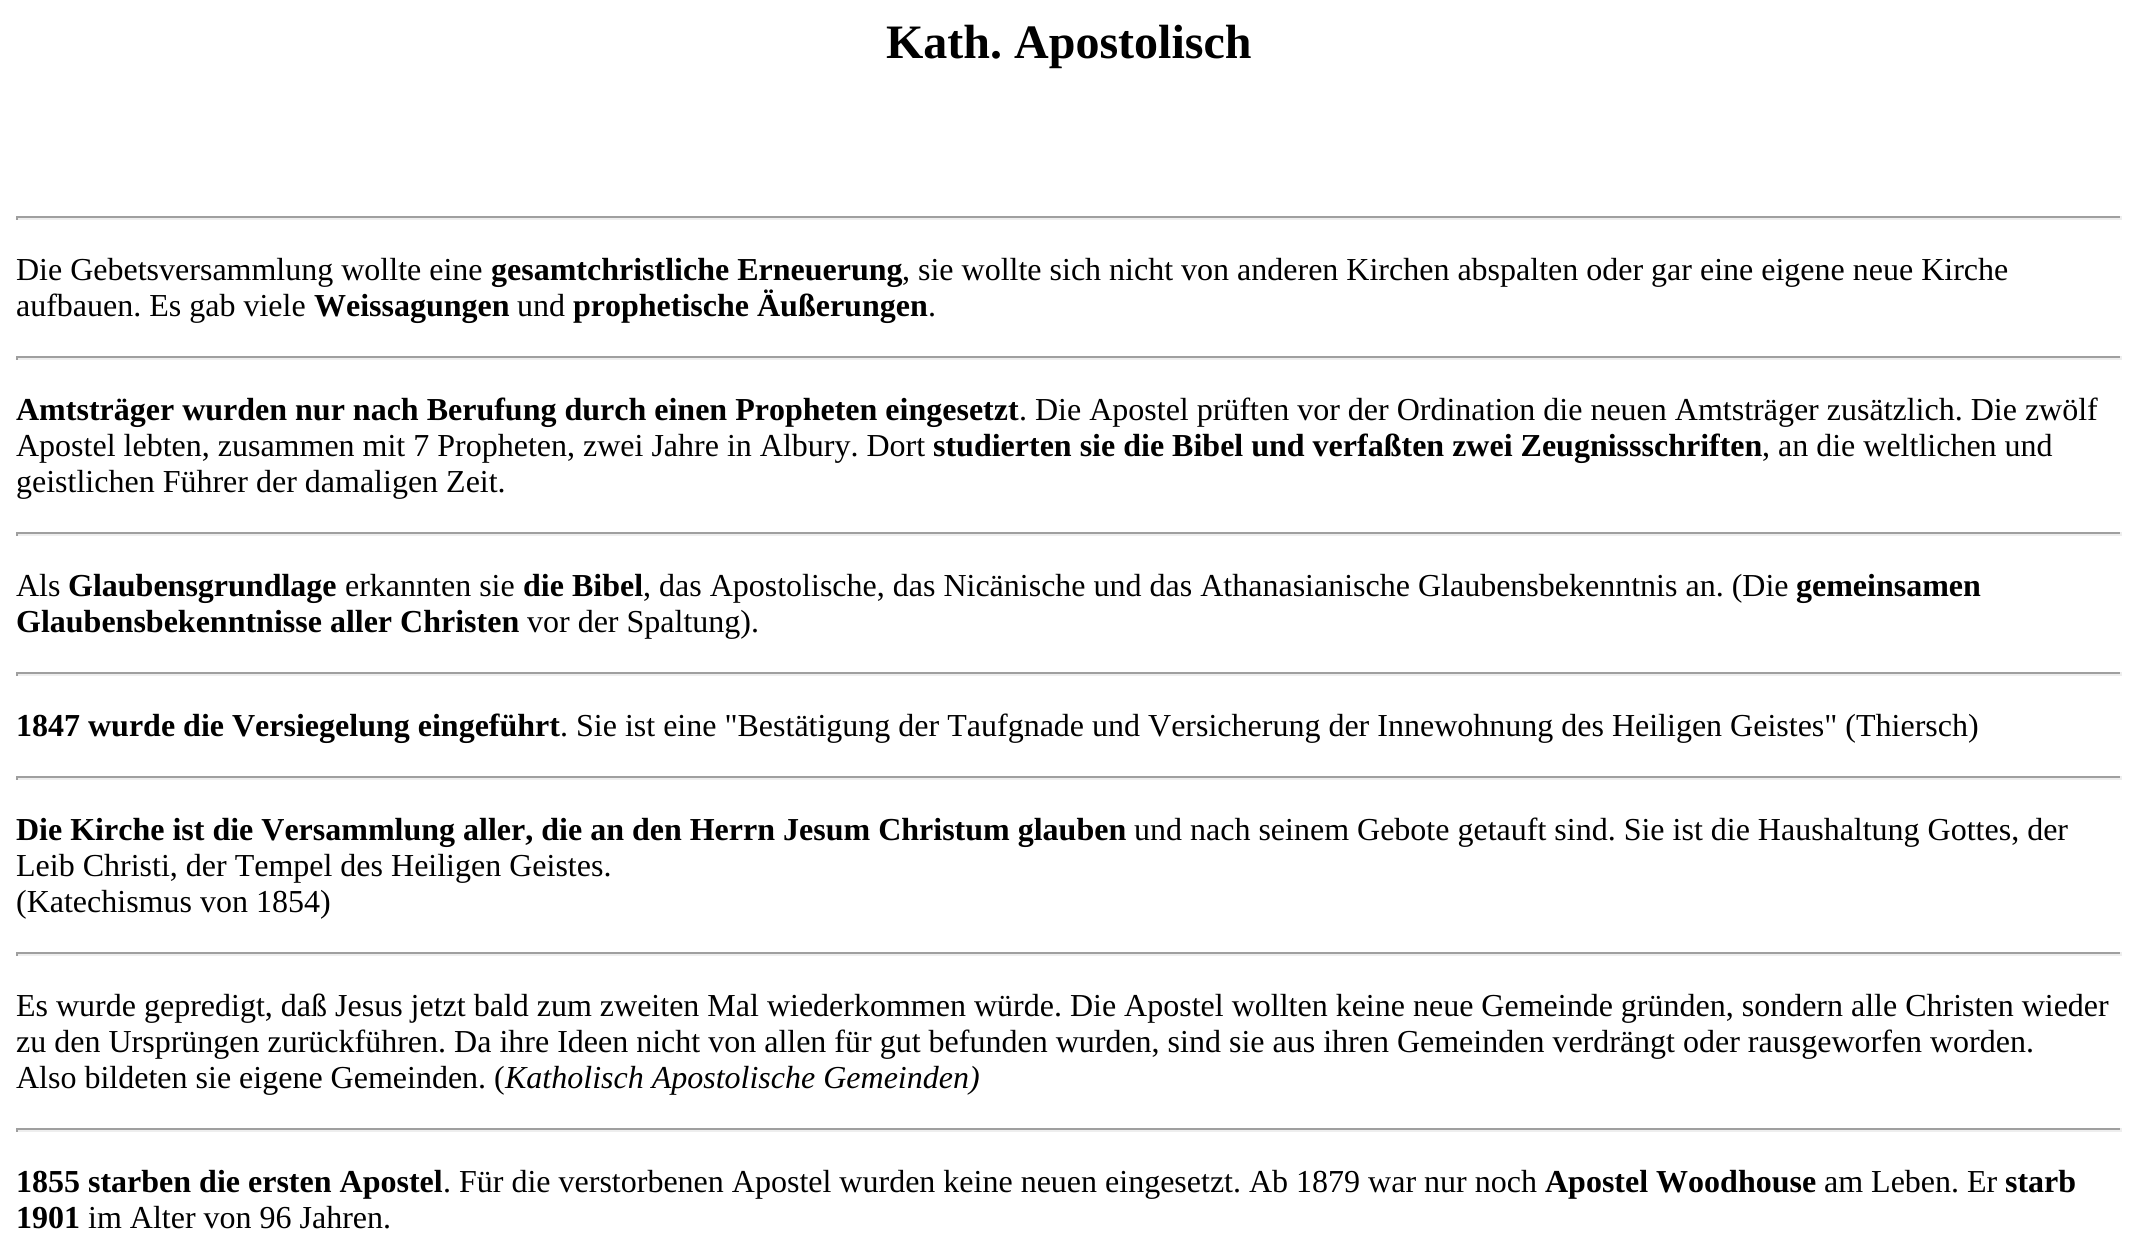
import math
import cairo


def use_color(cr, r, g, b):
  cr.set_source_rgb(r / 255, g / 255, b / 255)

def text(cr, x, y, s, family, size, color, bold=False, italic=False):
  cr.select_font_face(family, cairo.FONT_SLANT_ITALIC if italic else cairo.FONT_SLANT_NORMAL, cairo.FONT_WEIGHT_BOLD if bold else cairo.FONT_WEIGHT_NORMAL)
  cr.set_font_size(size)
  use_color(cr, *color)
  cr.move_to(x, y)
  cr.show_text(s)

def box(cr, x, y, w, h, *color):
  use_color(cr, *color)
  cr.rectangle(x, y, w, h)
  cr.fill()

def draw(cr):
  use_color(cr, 255, 255, 255)
  cr.paint()
  box(cr, 16, 216, 2106, 2, 159, 159, 159)
  box(cr, 2120, 216, 2, 4, 238, 238, 238)
  box(cr, 16, 218, 2106, 2, 238, 238, 238)
  box(cr, 16, 216, 2, 4, 159, 159, 159)
  box(cr, 16, 356, 2106, 2, 159, 159, 159)
  box(cr, 2120, 356, 2, 4, 238, 238, 238)
  box(cr, 16, 358, 2106, 2, 238, 238, 238)
  box(cr, 16, 356, 2, 4, 159, 159, 159)
  box(cr, 16, 532, 2106, 2, 159, 159, 159)
  box(cr, 2120, 532, 2, 4, 238, 238, 238)
  box(cr, 16, 534, 2106, 2, 238, 238, 238)
  box(cr, 16, 532, 2, 4, 159, 159, 159)
  box(cr, 16, 672, 2106, 2, 159, 159, 159)
  box(cr, 2120, 672, 2, 4, 238, 238, 238)
  box(cr, 16, 674, 2106, 2, 238, 238, 238)
  box(cr, 16, 672, 2, 4, 159, 159, 159)
  box(cr, 16, 776, 2106, 2, 159, 159, 159)
  box(cr, 2120, 776, 2, 4, 238, 238, 238)
  box(cr, 16, 778, 2106, 2, 238, 238, 238)
  box(cr, 16, 776, 2, 4, 159, 159, 159)
  box(cr, 16, 952, 2106, 2, 159, 159, 159)
  box(cr, 2120, 952, 2, 4, 238, 238, 238)
  box(cr, 16, 954, 2106, 2, 238, 238, 238)
  box(cr, 16, 952, 2, 4, 159, 159, 159)
  box(cr, 16, 1128, 2106, 2, 159, 159, 159)
  box(cr, 2120, 1128, 2, 4, 238, 238, 238)
  box(cr, 16, 1130, 2106, 2, 238, 238, 238)
  box(cr, 16, 1128, 2, 4, 159, 159, 159)
  text(cr, 886, 58, "Kath. Apostolisch", "Liberation Serif", 48, (0, 0, 0), bold=True)
  text(cr, 16, 280, "Die Gebetsversammlung wollte eine", "Liberation Serif", 32, (0, 0, 0))
  text(cr, 491, 280, "gesamtchristliche Erneuerung", "Liberation Serif", 32, (0, 0, 0), bold=True)
  text(cr, 902, 280, ", sie wollte sich nicht von anderen Kirchen abspalten oder gar eine eigene neue Kirche", "Liberation Serif", 32, (0, 0, 0))
  text(cr, 16, 316, "aufbauen. Es gab viele", "Liberation Serif", 32, (0, 0, 0))
  text(cr, 314, 316, "Weissagungen", "Liberation Serif", 32, (0, 0, 0), bold=True)
  text(cr, 517, 316, "und", "Liberation Serif", 32, (0, 0, 0))
  text(cr, 573, 316, "prophetische Äußerungen", "Liberation Serif", 32, (0, 0, 0), bold=True)
  text(cr, 928, 316, ".", "Liberation Serif", 32, (0, 0, 0))
  text(cr, 16, 420, "Amtsträger wurden nur nach Berufung durch einen Propheten eingesetzt", "Liberation Serif", 32, (0, 0, 0), bold=True)
  text(cr, 1019, 420, ". Die Apostel prüften vor der Ordination die neuen Amtsträger zusätzlich. Die zwölf", "Liberation Serif", 32, (0, 0, 0))
  text(cr, 16, 456, "Apostel lebten, zusammen mit 7 Propheten, zwei Jahre in Albury. Dort", "Liberation Serif", 32, (0, 0, 0))
  text(cr, 933, 456, "studierten sie die Bibel und verfaßten zwei Zeugnissschriften", "Liberation Serif", 32, (0, 0, 0), bold=True)
  text(cr, 1762, 456, ", an die weltlichen und", "Liberation Serif", 32, (0, 0, 0))
  text(cr, 16, 492, "geistlichen Führer der damaligen Zeit.", "Liberation Serif", 32, (0, 0, 0))
  text(cr, 16, 596, "Als", "Liberation Serif", 32, (0, 0, 0))
  text(cr, 68, 596, "Glaubensgrundlage", "Liberation Serif", 32, (0, 0, 0), bold=True)
  text(cr, 345, 596, "erkannten sie", "Liberation Serif", 32, (0, 0, 0))
  text(cr, 523, 596, "die Bibel", "Liberation Serif", 32, (0, 0, 0), bold=True)
  text(cr, 643, 596, ", das Apostolische, das Nicänische und das Athanasianische Glaubensbekenntnis an. (Die", "Liberation Serif", 32, (0, 0, 0))
  text(cr, 1796, 596, "gemeinsamen", "Liberation Serif", 32, (0, 0, 0), bold=True)
  text(cr, 16, 632, "Glaubensbekenntnisse aller Christen", "Liberation Serif", 32, (0, 0, 0), bold=True)
  text(cr, 527, 632, "vor der Spaltung).", "Liberation Serif", 32, (0, 0, 0))
  text(cr, 16, 736, "1847 wurde die Versiegelung eingeführt", "Liberation Serif", 32, (0, 0, 0), bold=True)
  text(cr, 560, 736, ". Sie ist eine \"Bestätigung der Taufgnade und Versicherung der Innewohnung des Heiligen Geistes\" (Thiersch)", "Liberation Serif", 32, (0, 0, 0))
  text(cr, 16, 840, "Die Kirche ist die Versammlung aller, die an den Herrn Jesum Christum glauben", "Liberation Serif", 32, (0, 0, 0), bold=True)
  text(cr, 1134, 840, "und nach seinem Gebote getauft sind. Sie ist die Haushaltung Gottes, der", "Liberation Serif", 32, (0, 0, 0))
  text(cr, 16, 876, "Leib Christi, der Tempel des Heiligen Geistes.", "Liberation Serif", 32, (0, 0, 0))
  text(cr, 16, 912, "(Katechismus von 1854)", "Liberation Serif", 32, (0, 0, 0))
  text(cr, 16, 1016, "Es wurde gepredigt, daß Jesus jetzt bald zum zweiten Mal wiederkommen würde. Die Apostel wollten keine neue Gemeinde gründen, sondern alle Christen wieder", "Liberation Serif", 32, (0, 0, 0))
  text(cr, 16, 1052, "zu den Ursprüngen zurückführen. Da ihre Ideen nicht von allen für gut befunden wurden, sind sie aus ihren Gemeinden verdrängt oder rausgeworfen worden.", "Liberation Serif", 32, (0, 0, 0))
  text(cr, 16, 1088, "Also bildeten sie eigene Gemeinden. (", "Liberation Serif", 32, (0, 0, 0))
  text(cr, 505, 1088, "Katholisch Apostolische Gemeinden)", "Liberation Serif", 32, (0, 0, 0), italic=True)
  text(cr, 16, 1192, "1855 starben die ersten Apostel", "Liberation Serif", 32, (0, 0, 0), bold=True)
  text(cr, 443, 1192, ". Für die verstorbenen Apostel wurden keine neuen eingesetzt. Ab 1879 war nur noch", "Liberation Serif", 32, (0, 0, 0))
  text(cr, 1545, 1192, "Apostel Woodhouse", "Liberation Serif", 32, (0, 0, 0), bold=True)
  text(cr, 1824, 1192, "am Leben. Er", "Liberation Serif", 32, (0, 0, 0))
  text(cr, 2005, 1192, "starb", "Liberation Serif", 32, (0, 0, 0), bold=True)
  text(cr, 16, 1228, "1901", "Liberation Serif", 32, (0, 0, 0), bold=True)
  text(cr, 88, 1228, "im Alter von 96 Jahren.", "Liberation Serif", 32, (0, 0, 0))


surface = cairo.ImageSurface(cairo.FORMAT_RGB24, 2138, 1248)
cr = cairo.Context(surface)
options = cairo.FontOptions()
options.set_hint_metrics(cairo.HINT_METRICS_OFF)
options.set_hint_style(cairo.HINT_STYLE_NONE)
cr.set_font_options(options)
cr.set_miter_limit(4)
draw(cr)
surface.write_to_png("out.png")
